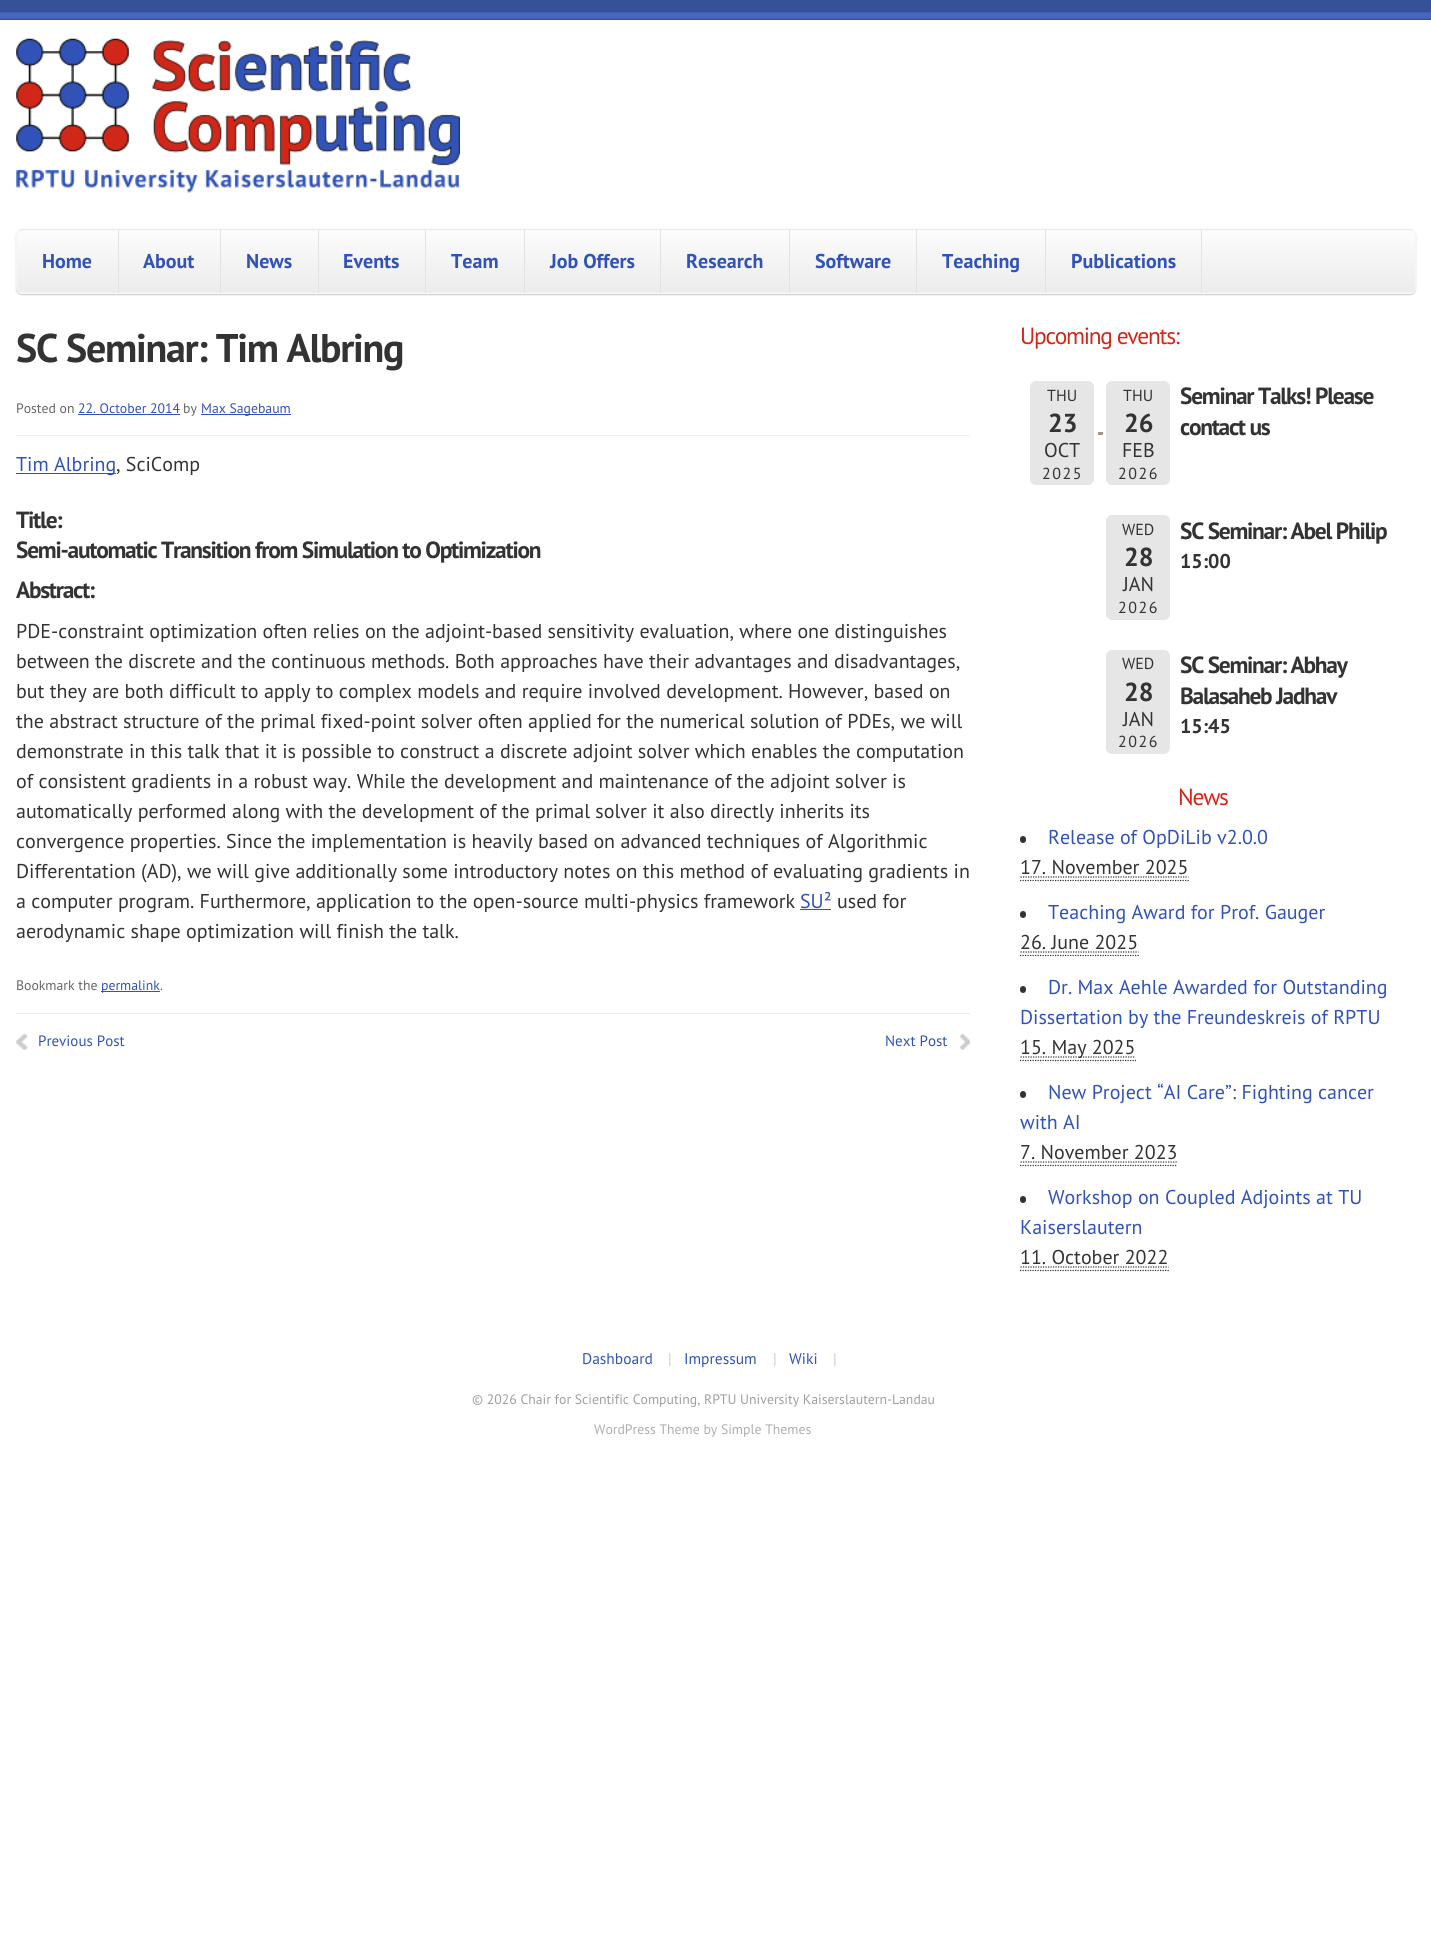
import math
import cairo


def use_color(cr, r, g, b):
  cr.set_source_rgb(r / 255, g / 255, b / 255)

def text(cr, x, y, s, family, size, color, bold=False, italic=False):
  cr.select_font_face(family, cairo.FONT_SLANT_ITALIC if italic else cairo.FONT_SLANT_NORMAL, cairo.FONT_WEIGHT_BOLD if bold else cairo.FONT_WEIGHT_NORMAL)
  cr.set_font_size(size)
  use_color(cr, *color)
  cr.move_to(x, y)
  cr.show_text(s)

def spaced_text(cr, x, y, s, letter, word):
  cr.move_to(x, y)
  for ch in s:
    cr.show_text(ch)
    cr.rel_move_to(letter + word * (ch == ' '), 0)

def box(cr, x, y, w, h, *color):
  use_color(cr, *color)
  cr.rectangle(x, y, w, h)
  cr.fill()

def round_rect(cr, x, y, w, h, r):
  cr.new_sub_path()
  for i, (u, v) in enumerate([(x + w - r, y + h - r), (x + r, y + h - r), (x + r, y + r), (x + w - r, y + r)]):
    cr.arc(u, v, r, i * math.pi / 2, (i + 1) * math.pi / 2)
  cr.close_path()

def shadow(cr, x, y, w, h, r, blur, alpha):
  cr.push_group_with_content(cairo.CONTENT_ALPHA)
  cr.set_operator(cairo.OPERATOR_SOURCE)
  for i in range(15, -16, -2):
    e = blur * i / 6
    if min(w, h) + 2 * e > 0:
      cr.set_source_rgba(0, 0, 0, alpha * math.erfc((i - 1) / 8.5) / 2)
      round_rect(cr, x - e, y - e, w + 2 * e, h + 2 * e, max(0, min(r + e + blur * .6, min(w, h) / 2 + e)))
      cr.fill()
  cr.mask(cr.pop_group())

def picture(cr, path, x, y, w, h):
  cr.save()
  cr.set_source_surface(cairo.ImageSurface.create_from_png(path), x, y)
  cr.rectangle(x, y, w, h)
  cr.fill()
  cr.restore()

def draw(cr):
  use_color(cr, 255, 255, 255)
  cr.paint()
  picture(cr, "img_01.png", 0, 0, 1431, 20)
  picture(cr, "img_02.png", 16, 38, 444, 155)
  use_color(cr, 0, 0, 0)
  shadow(cr, 16, 230, 1400, 65, 6, 0.5, 0.2)
  cr.save()
  round_rect(cr, 16, 229, 1400, 65, 6)
  cr.clip()
  gradient = cairo.LinearGradient(716, 230, 716, 293)
  gradient.add_color_stop_rgba(0, 0.988, 0.988, 0.988, 1)
  gradient.add_color_stop_rgba(1, 0.925, 0.925, 0.925, 1)
  cr.set_source(gradient)
  cr.rectangle(16, 230, 1400, 63)
  cr.fill()
  gradient = cairo.LinearGradient(716, 292, 716, 355)
  gradient.add_color_stop_rgba(0, 0.988, 0.988, 0.988, 1)
  gradient.add_color_stop_rgba(1, 0.925, 0.925, 0.925, 1)
  cr.set_source(gradient)
  cr.rectangle(16, 293, 1400, 1)
  cr.fill()
  cr.restore()
  cr.new_path()
  cr.move_to(18.5, 231)
  cr.curve_to(19.5, 230, 21, 229.5, 22.5, 229.5)
  cr.line_to(1410, 229.5)
  cr.curve_to(1411.5, 229.5, 1413, 230, 1414, 231)
  use_color(cr, 234, 234, 234)
  cr.set_line_width(1.2)
  cr.stroke()
  cr.new_path()
  cr.move_to(1414, 231)
  cr.curve_to(1415, 232, 1415.5, 233.5, 1415.5, 235)
  cr.line_to(1415.5, 287.5)
  cr.curve_to(1415.5, 289, 1415, 290.5, 1414, 291.5)
  cr.curve_to(1413, 292.5, 1411.5, 293, 1410, 293)
  cr.line_to(22.5, 293)
  cr.curve_to(21, 293, 19.5, 292.5, 18.5, 291.5)
  cr.curve_to(17.5, 290.5, 17, 289, 17, 287.5)
  cr.line_to(17, 235)
  cr.curve_to(17, 233.5, 17.5, 232, 18.5, 231)
  use_color(cr, 245, 245, 245)
  cr.stroke()
  box(cr, 118, 230, 1, 63, 227, 227, 227)
  box(cr, 18, 291, 1, 1, 238, 238, 238)
  box(cr, 220, 230, 1, 63, 227, 227, 227)
  box(cr, 318, 230, 1, 63, 227, 227, 227)
  box(cr, 425, 230, 1, 63, 227, 227, 227)
  box(cr, 524, 230, 1, 63, 227, 227, 227)
  box(cr, 660, 230, 1, 63, 227, 227, 227)
  box(cr, 789, 230, 1, 63, 227, 227, 227)
  box(cr, 916, 230, 1, 63, 227, 227, 227)
  box(cr, 1045, 230, 1, 63, 227, 227, 227)
  box(cr, 1201, 230, 1, 63, 227, 227, 227)
  box(cr, 16, 435, 954, 1, 238, 238, 238)
  box(cr, 78, 414, 102, 1, 49, 83, 183)
  box(cr, 201, 414, 90, 1, 49, 83, 183)
  box(cr, 16, 473, 100, 1, 49, 83, 183)
  box(cr, 800, 909, 31, 1, 49, 83, 183)
  box(cr, 16, 1013, 954, 1, 238, 238, 238)
  box(cr, 101, 991, 59, 1, 49, 83, 183)
  picture(cr, "img_03.png", 16, 1033, 12, 17)
  picture(cr, "img_04.png", 960, 1033, 10, 17)
  box(cr, 1098, 432, 5, 3, 161, 148, 139)
  use_color(cr, 230, 230, 230)
  round_rect(cr, 1030, 381, 64, 104, 6)
  cr.fill()
  round_rect(cr, 1106, 381, 64, 104, 6)
  cr.fill()
  round_rect(cr, 1106, 515, 64, 105, 6)
  cr.fill()
  round_rect(cr, 1106, 650, 64, 104, 6)
  cr.fill()
  use_color(cr, 51, 51, 51)
  round_rect(cr, 1020, 836, 6, 7, 3)
  cr.fill()
  cr.new_path()
  cr.move_to(1020, 880.5)
  cr.line_to(1189, 880.5)
  cr.set_dash([1.25, 1.25])
  cr.stroke()
  cr.new_path()
  cr.move_to(1020.5, 877)
  cr.line_to(1188.5, 877)
  cr.stroke()
  round_rect(cr, 1020, 911, 6, 7, 3)
  cr.fill()
  cr.new_path()
  cr.move_to(1020, 955.5)
  cr.line_to(1139, 955.5)
  cr.stroke()
  cr.new_path()
  cr.move_to(1020.5, 952)
  cr.line_to(1138.5, 952)
  cr.stroke()
  round_rect(cr, 1020, 986, 6, 7, 3)
  cr.fill()
  cr.new_path()
  cr.move_to(1020, 1060.5)
  cr.line_to(1136, 1060.5)
  cr.stroke()
  cr.new_path()
  cr.move_to(1020.5, 1057)
  cr.line_to(1135.5, 1057)
  cr.stroke()
  round_rect(cr, 1020, 1091, 6, 7, 3)
  cr.fill()
  cr.new_path()
  cr.move_to(1020, 1165.5)
  cr.line_to(1177.5, 1165.5)
  cr.stroke()
  cr.new_path()
  cr.move_to(1020.5, 1162)
  cr.line_to(1178, 1162)
  cr.stroke()
  round_rect(cr, 1020, 1196, 6, 7, 3)
  cr.fill()
  cr.new_path()
  cr.move_to(1020, 1270.5)
  cr.line_to(1169, 1270.5)
  cr.stroke()
  cr.new_path()
  cr.move_to(1020.5, 1267)
  cr.line_to(1168.5, 1267)
  cr.stroke()
  text(cr, 42, 268, "Home", "PT Sans", 20, (49, 83, 183), bold=True)
  text(cr, 143, 268, "About", "PT Sans", 20, (49, 83, 183), bold=True)
  text(cr, 246, 268, "News", "PT Sans", 20, (49, 83, 183), bold=True)
  text(cr, 343, 268, "Events", "PT Sans", 20, (49, 83, 183), bold=True)
  text(cr, 451, 268, "Team", "PT Sans", 20, (49, 83, 183), bold=True)
  text(cr, 550, 268, "Job Offers", "PT Sans", 20, (49, 83, 183), bold=True)
  text(cr, 686, 268, "Research", "PT Sans", 20, (49, 83, 183), bold=True)
  text(cr, 815, 268, "Software", "PT Sans", 20, (49, 83, 183), bold=True)
  text(cr, 942, 268, "Teaching", "PT Sans", 20, (49, 83, 183), bold=True)
  text(cr, 1071, 268, "Publications", "PT Sans", 20, (49, 83, 183), bold=True)
  cr.set_font_size(40)
  use_color(cr, 51, 51, 51)
  spaced_text(cr, 16, 362, "SC Seminar: Tim Albring", -1.25, 0)
  text(cr, 16, 413, "Posted on", "PT Sans", 13.75, (102, 102, 102))
  text(cr, 78, 413, "22. October 2014", "PT Sans", 13.75, (49, 83, 183))
  text(cr, 183, 413, "by", "PT Sans", 13.75, (102, 102, 102))
  text(cr, 201, 413, "Max Sagebaum", "PT Sans", 13.75, (49, 83, 183))
  text(cr, 16, 471, "Tim Albring", "PT Sans", 20, (49, 83, 183))
  text(cr, 116, 471, ", SciComp", "PT Sans", 20, (51, 51, 51))
  cr.select_font_face("PT Sans", cairo.FONT_SLANT_NORMAL, cairo.FONT_WEIGHT_BOLD)
  cr.set_font_size(23.4)
  spaced_text(cr, 16, 528, "Title:", -1.25, 0)
  spaced_text(cr, 16, 558, "Semi-automatic Transition from Simulation to Optimization", -1.25, 0)
  spaced_text(cr, 16, 598, "Abstract:", -1.25, 0)
  text(cr, 16, 638, "PDE-constraint optimization often relies on the adjoint-based sensitivity evaluation, where one distinguishes", "PT Sans", 20, (51, 51, 51))
  text(cr, 16, 668, "between the discrete and the continuous methods. Both approaches have their advantages and disadvantages,", "PT Sans", 20, (51, 51, 51))
  text(cr, 16, 698, "but they are both difficult to apply to complex models and require involved development. However, based on", "PT Sans", 20, (51, 51, 51))
  text(cr, 16, 728, "the abstract structure of the primal fixed-point solver often applied for the numerical solution of PDEs, we will", "PT Sans", 20, (51, 51, 51))
  text(cr, 16, 758, "demonstrate in this talk that it is possible to construct a discrete adjoint solver which enables the computation", "PT Sans", 20, (51, 51, 51))
  text(cr, 16, 788, "of consistent gradients in a robust way. While the development and maintenance of the adjoint solver is", "PT Sans", 20, (51, 51, 51))
  text(cr, 16, 818, "automatically performed along with the development of the primal solver it also directly inherits its", "PT Sans", 20, (51, 51, 51))
  text(cr, 16, 848, "convergence properties. Since the implementation is heavily based on advanced techniques of Algorithmic", "PT Sans", 20, (51, 51, 51))
  text(cr, 16, 878, "Differentation (AD), we will give additionally some introductory notes on this method of evaluating gradients in", "PT Sans", 20, (51, 51, 51))
  text(cr, 16, 908, "a computer program. Furthermore, application to the open-source multi-physics framework", "PT Sans", 20, (51, 51, 51))
  text(cr, 800, 908, "SU²", "PT Sans", 20, (49, 83, 183))
  text(cr, 837, 908, "used for", "PT Sans", 20, (51, 51, 51))
  text(cr, 16, 938, "aerodynamic shape optimization will finish the talk.", "PT Sans", 20, (51, 51, 51))
  text(cr, 16, 990, "Bookmark the", "PT Sans", 13.75, (102, 102, 102))
  text(cr, 101, 990, "permalink", "PT Sans", 13.75, (49, 83, 183))
  text(cr, 160, 990, ".", "PT Sans", 13.75, (102, 102, 102))
  text(cr, 38, 1046, "Previous Post", "PT Sans", 15, (49, 83, 183))
  text(cr, 885, 1046, "Next Post", "PT Sans", 15, (49, 83, 183))
  cr.set_font_size(23.4)
  use_color(cr, 208, 39, 24)
  spaced_text(cr, 1020, 344, "Upcoming events:", -1.25, 0)
  text(cr, 1047, 401, "THU", "PT Sans", 16, (51, 51, 51))
  text(cr, 1048, 432, "23", "PT Sans", 26, (51, 51, 51), bold=True)
  text(cr, 1044, 457, "OCT", "PT Sans", 20, (51, 51, 51))
  cr.set_font_size(16)
  spaced_text(cr, 1042, 479, "2025", 1.5, 0)
  text(cr, 1123, 401, "THU", "PT Sans", 16, (51, 51, 51))
  text(cr, 1124, 432, "26", "PT Sans", 26, (51, 51, 51), bold=True)
  text(cr, 1122, 457, "FEB", "PT Sans", 20, (51, 51, 51))
  cr.set_font_size(16)
  spaced_text(cr, 1118, 479, "2026", 1.5, 0)
  cr.select_font_face("PT Sans", cairo.FONT_SLANT_NORMAL, cairo.FONT_WEIGHT_BOLD)
  cr.set_font_size(23.4)
  spaced_text(cr, 1180, 404, "Seminar Talks! Please", -1.25, 0)
  spaced_text(cr, 1180, 435, "contact us", -1.25, 0)
  text(cr, 1122, 535, "WED", "PT Sans", 16, (51, 51, 51))
  text(cr, 1124, 566, "28", "PT Sans", 26, (51, 51, 51), bold=True)
  text(cr, 1123, 591, "JAN", "PT Sans", 20, (51, 51, 51))
  cr.set_font_size(16)
  spaced_text(cr, 1118, 613, "2026", 1.5, 0)
  cr.select_font_face("PT Sans", cairo.FONT_SLANT_NORMAL, cairo.FONT_WEIGHT_BOLD)
  cr.set_font_size(23.4)
  spaced_text(cr, 1180, 539, "SC Seminar: Abel Philip", -1.25, 0)
  text(cr, 1180, 568, "15:00", "PT Sans", 20, (51, 51, 51), bold=True)
  text(cr, 1122, 669, "WED", "PT Sans", 16, (51, 51, 51))
  text(cr, 1124, 701, "28", "PT Sans", 26, (51, 51, 51), bold=True)
  text(cr, 1123, 726, "JAN", "PT Sans", 20, (51, 51, 51))
  cr.set_font_size(16)
  spaced_text(cr, 1118, 747, "2026", 1.5, 0)
  cr.select_font_face("PT Sans", cairo.FONT_SLANT_NORMAL, cairo.FONT_WEIGHT_BOLD)
  cr.set_font_size(23.4)
  spaced_text(cr, 1180, 673, "SC Seminar: Abhay", -1.25, 0)
  spaced_text(cr, 1180, 704, "Balasaheb Jadhav", -1.25, 0)
  text(cr, 1180, 733, "15:45", "PT Sans", 20, (51, 51, 51), bold=True)
  cr.select_font_face("PT Sans")
  cr.set_font_size(23.4)
  use_color(cr, 208, 39, 24)
  spaced_text(cr, 1178, 805, "News", -1.25, 0)
  text(cr, 1048, 844, "Release of OpDiLib v2.0.0", "PT Sans", 20, (49, 83, 183))
  text(cr, 1020, 874, "17. November 2025", "PT Sans", 20, (51, 51, 51))
  text(cr, 1048, 919, "Teaching Award for Prof. Gauger", "PT Sans", 20, (49, 83, 183))
  text(cr, 1020, 949, "26. June 2025", "PT Sans", 20, (51, 51, 51))
  text(cr, 1048, 994, "Dr. Max Aehle Awarded for Outstanding", "PT Sans", 20, (49, 83, 183))
  text(cr, 1020, 1024, "Dissertation by the Freundeskreis of RPTU", "PT Sans", 20, (49, 83, 183))
  text(cr, 1020, 1054, "15. May 2025", "PT Sans", 20, (51, 51, 51))
  text(cr, 1048, 1099, "New Project “AI Care”: Fighting cancer", "PT Sans", 20, (49, 83, 183))
  text(cr, 1020, 1129, "with AI", "PT Sans", 20, (49, 83, 183))
  text(cr, 1020, 1159, "7. November 2023", "PT Sans", 20, (51, 51, 51))
  text(cr, 1048, 1204, "Workshop on Coupled Adjoints at TU", "PT Sans", 20, (49, 83, 183))
  text(cr, 1020, 1234, "Kaiserslautern", "PT Sans", 20, (49, 83, 183))
  text(cr, 1020, 1264, "11. October 2022", "PT Sans", 20, (51, 51, 51))
  text(cr, 582, 1364, "Dashboard", "PT Sans", 15.5, (49, 83, 183))
  text(cr, 668, 1364, "|", "PT Sans", 15.5, (204, 204, 204))
  text(cr, 684, 1364, "Impressum", "PT Sans", 15.5, (49, 83, 183))
  text(cr, 773, 1364, "|", "PT Sans", 15.5, (204, 204, 204))
  text(cr, 789, 1364, "Wiki", "PT Sans", 15.5, (49, 83, 183))
  text(cr, 833, 1364, "|", "PT Sans", 15.5, (204, 204, 204))
  text(cr, 472, 1404, "© 2026 Chair for Scientific Computing, RPTU University Kaiserslautern-Landau", "PT Sans", 13.75, (159, 159, 159))
  text(cr, 594, 1434, "WordPress Theme by Simple Themes", "PT Sans", 13.75, (174, 174, 174))


surface = cairo.ImageSurface(cairo.FORMAT_RGB24, 1431, 1953)
cr = cairo.Context(surface)
options = cairo.FontOptions()
options.set_hint_metrics(cairo.HINT_METRICS_OFF)
options.set_hint_style(cairo.HINT_STYLE_NONE)
cr.set_font_options(options)
cr.set_miter_limit(4)
draw(cr)
surface.write_to_png("out.png")
